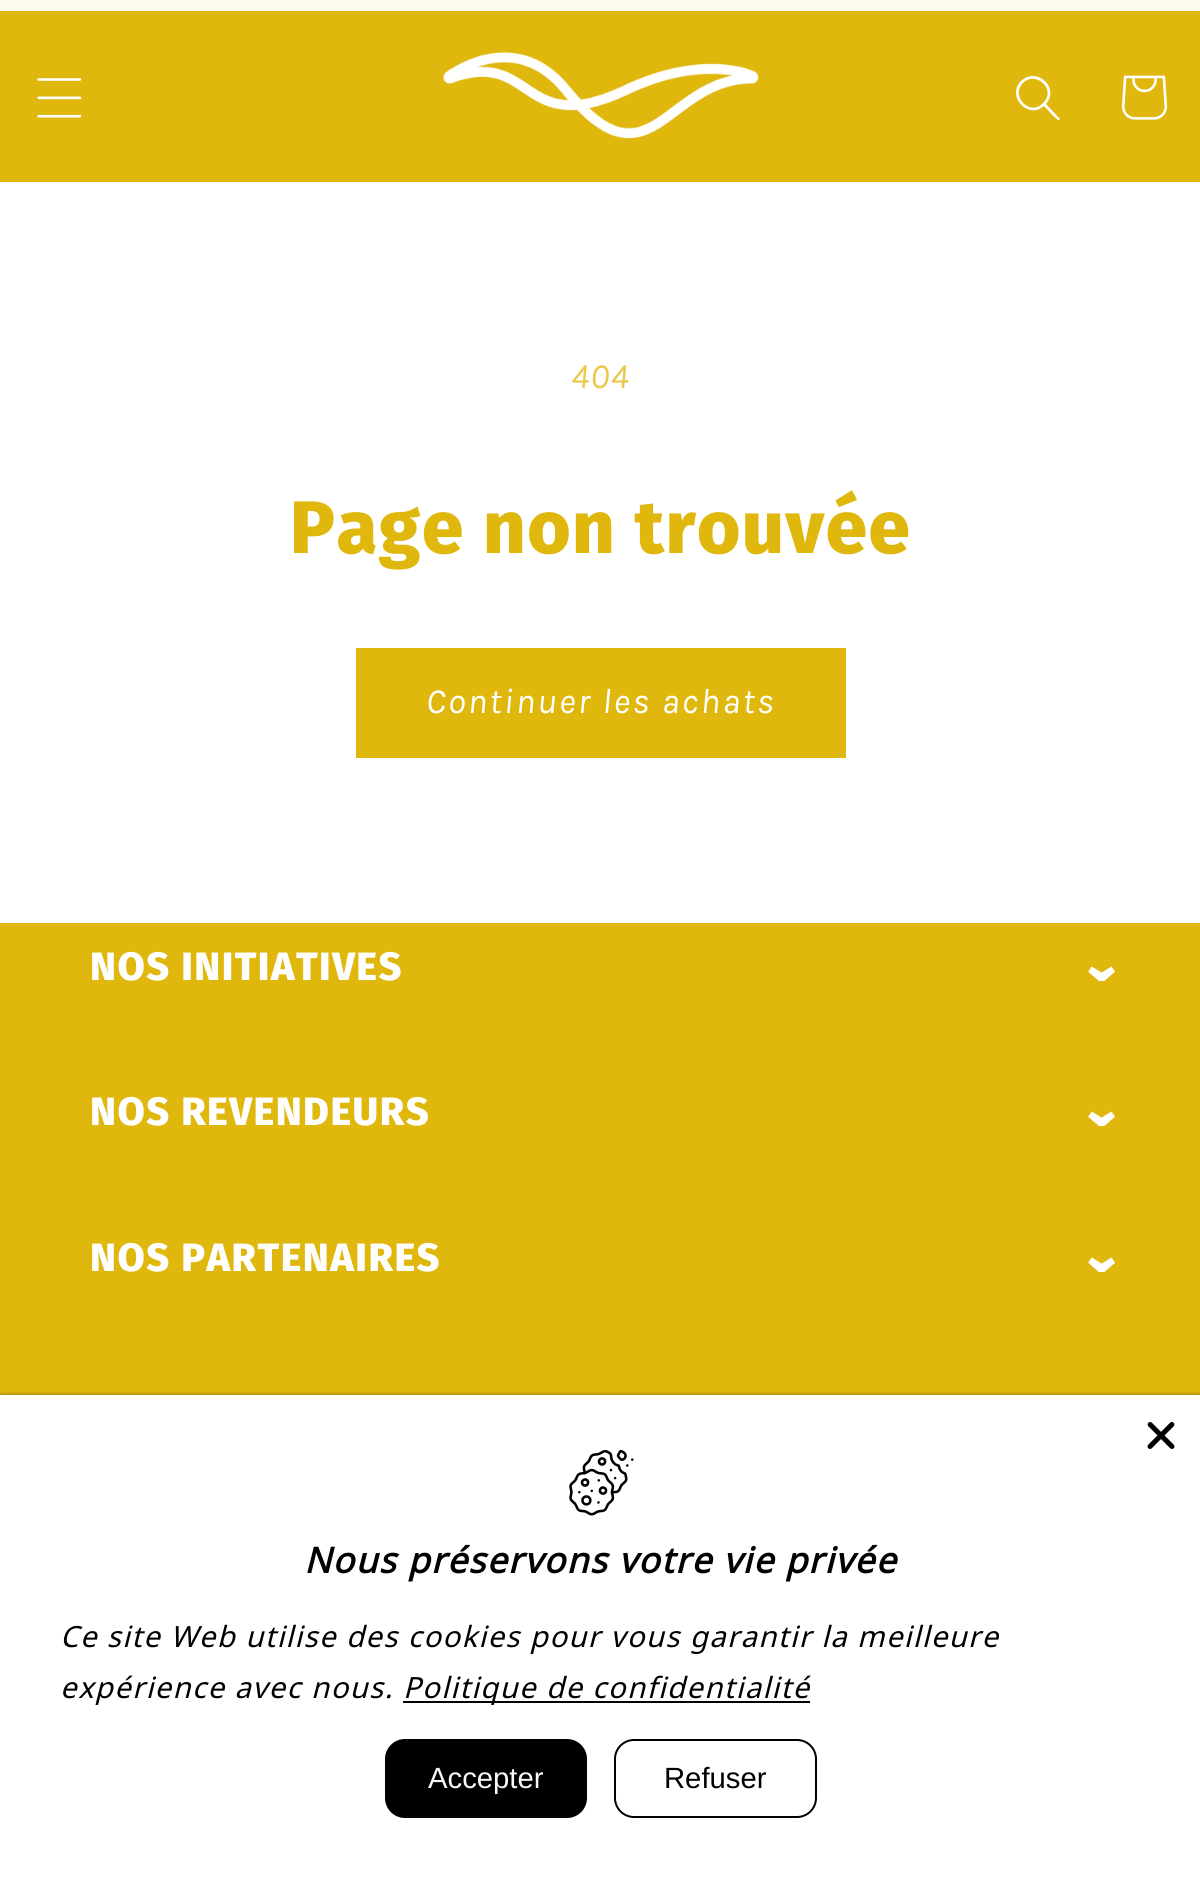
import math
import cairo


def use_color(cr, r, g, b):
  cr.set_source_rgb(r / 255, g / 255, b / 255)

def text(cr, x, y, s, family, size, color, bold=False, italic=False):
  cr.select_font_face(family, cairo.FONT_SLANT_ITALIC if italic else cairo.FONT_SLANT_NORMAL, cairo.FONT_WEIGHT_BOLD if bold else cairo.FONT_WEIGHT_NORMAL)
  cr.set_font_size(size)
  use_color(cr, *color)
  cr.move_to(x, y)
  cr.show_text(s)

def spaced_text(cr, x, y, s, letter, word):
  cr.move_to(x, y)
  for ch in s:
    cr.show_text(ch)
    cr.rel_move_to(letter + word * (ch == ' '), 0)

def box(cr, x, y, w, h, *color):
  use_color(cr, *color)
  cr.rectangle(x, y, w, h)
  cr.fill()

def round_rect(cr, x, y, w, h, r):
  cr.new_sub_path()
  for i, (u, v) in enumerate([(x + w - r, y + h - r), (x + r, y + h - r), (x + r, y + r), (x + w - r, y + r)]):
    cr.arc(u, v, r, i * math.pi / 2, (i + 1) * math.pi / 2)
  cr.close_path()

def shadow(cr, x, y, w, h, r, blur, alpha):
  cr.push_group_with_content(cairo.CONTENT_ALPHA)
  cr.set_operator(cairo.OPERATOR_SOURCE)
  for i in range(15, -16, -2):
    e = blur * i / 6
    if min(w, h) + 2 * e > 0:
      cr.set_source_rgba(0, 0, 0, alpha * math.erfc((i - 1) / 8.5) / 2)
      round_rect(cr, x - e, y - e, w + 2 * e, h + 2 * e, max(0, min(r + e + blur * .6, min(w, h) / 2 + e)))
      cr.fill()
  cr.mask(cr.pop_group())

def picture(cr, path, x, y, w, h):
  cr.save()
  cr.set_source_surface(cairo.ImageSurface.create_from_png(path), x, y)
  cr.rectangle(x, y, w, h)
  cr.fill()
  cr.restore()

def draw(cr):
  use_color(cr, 255, 255, 255)
  cr.paint()
  box(cr, 0, 9, 1200, 2, 253, 249, 236)
  box(cr, 0, 0, 1200, 9, 253, 251, 240)
  box(cr, 0, 11, 1200, 171, 224, 183, 13)
  picture(cr, "img_01.png", 37, 78, 45, 40)
  picture(cr, "img_02.png", 442, 52, 317, 87)
  use_color(cr, 255, 255, 255)
  cr.set_fill_rule(cairo.FILL_RULE_EVEN_ODD)
  cr.new_path()
  cr.move_to(1043, 103)
  cr.curve_to(1030, 117, 1010, 96, 1023, 83)
  cr.curve_to(1036, 70, 1057, 90, 1043, 103)
  cr.close_path()
  cr.move_to(1044, 106)
  cr.curve_to(1028, 120, 1006, 96, 1021, 81)
  cr.curve_to(1037, 66, 1060, 88, 1046, 104)
  cr.line_to(1060, 119)
  cr.line_to(1059, 120)
  cr.curve_to(1057, 121, 1046, 108, 1044, 106)
  cr.close_path()
  cr.fill()
  picture(cr, "img_03.png", 1121, 75, 47, 45)
  box(cr, 356, 648, 490, 110, 224, 183, 13)
  box(cr, 0, 923, 1200, 472, 224, 183, 13)
  use_color(cr, 0, 0, 0)
  shadow(cr, 0, 1395, 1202, 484, 0, 2, 0.5)
  box(cr, 0, 1395, 1200, 483, 255, 255, 255)
  picture(cr, "img_04.png", 1147, 1422, 28, 27)
  picture(cr, "img_05.png", 569, 1450, 65, 66)
  box(cr, 403, 1701, 407, 2, 0, 0, 0)
  round_rect(cr, 385, 1739, 202, 79, 20)
  cr.fill()
  round_rect(cr, 615, 1740, 201, 77, 19)
  cr.stroke()
  cr.select_font_face("Karla", cairo.FONT_SLANT_ITALIC)
  cr.set_font_size(35.4)
  use_color(cr, 232, 201, 74)
  spaced_text(cr, 571, 388, "404", 1.42, 0)
  cr.select_font_face("Fira Sans ExtraBold")
  cr.set_font_size(74.25)
  use_color(cr, 224, 183, 13)
  spaced_text(cr, 290, 553, "Page non trouvée", 1.5, 0)
  cr.select_font_face("Karla", cairo.FONT_SLANT_ITALIC)
  cr.set_font_size(35.4)
  use_color(cr, 255, 255, 255)
  spaced_text(cr, 426, 713, "Continuer les achats", 2.4, 0)
  cr.select_font_face("Fira Sans ExtraBold")
  cr.set_font_size(39.5)
  spaced_text(cr, 90, 980, "NOS INITIATIVES", 1.5, 0)
  cr.set_font_size(48)
  cr.save()
  cr.translate(1088, 965)
  cr.rotate(90 * math.pi / 180)
  spaced_text(cr, 0, 0, "›", 1.5, 0)
  cr.restore()
  cr.set_font_size(39.5)
  spaced_text(cr, 90, 1125, "NOS REVENDEURS", 1.5, 0)
  cr.set_font_size(48)
  cr.save()
  cr.translate(1088, 1110)
  cr.rotate(90 * math.pi / 180)
  spaced_text(cr, 0, 0, "›", 1.5, 0)
  cr.restore()
  cr.set_font_size(39.5)
  spaced_text(cr, 90, 1271, "NOS PARTENAIRES", 1.5, 0)
  cr.set_font_size(48)
  cr.save()
  cr.translate(1088, 1256)
  cr.rotate(90 * math.pi / 180)
  spaced_text(cr, 0, 0, "›", 1.5, 0)
  cr.restore()
  cr.select_font_face("Noto Sans", cairo.FONT_SLANT_ITALIC, cairo.FONT_WEIGHT_BOLD)
  cr.set_font_size(35.4)
  use_color(cr, 0, 0, 0)
  spaced_text(cr, 304, 1573, "Nous préservons votre vie privée", 1.42, 0)
  cr.select_font_face("Noto Sans", cairo.FONT_SLANT_ITALIC)
  cr.set_font_size(29.25)
  spaced_text(cr, 60, 1647, "Ce site Web utilise des cookies pour vous garantir la meilleure", 1.42, 0)
  spaced_text(cr, 60, 1698, "expérience avec nous.", 1.42, 0)
  spaced_text(cr, 403, 1698, "Politique de confidentialité", 1.42, 0)
  text(cr, 428, 1788, "Accepter", "Liberation Sans", 29.25, (248, 248, 248))
  text(cr, 664, 1788, "Refuser", "Liberation Sans", 29.25, (0, 0, 0))


surface = cairo.ImageSurface(cairo.FORMAT_RGB24, 1200, 1878)
cr = cairo.Context(surface)
options = cairo.FontOptions()
options.set_hint_metrics(cairo.HINT_METRICS_OFF)
options.set_hint_style(cairo.HINT_STYLE_NONE)
cr.set_font_options(options)
cr.set_miter_limit(4)
draw(cr)
surface.write_to_png("out.png")
